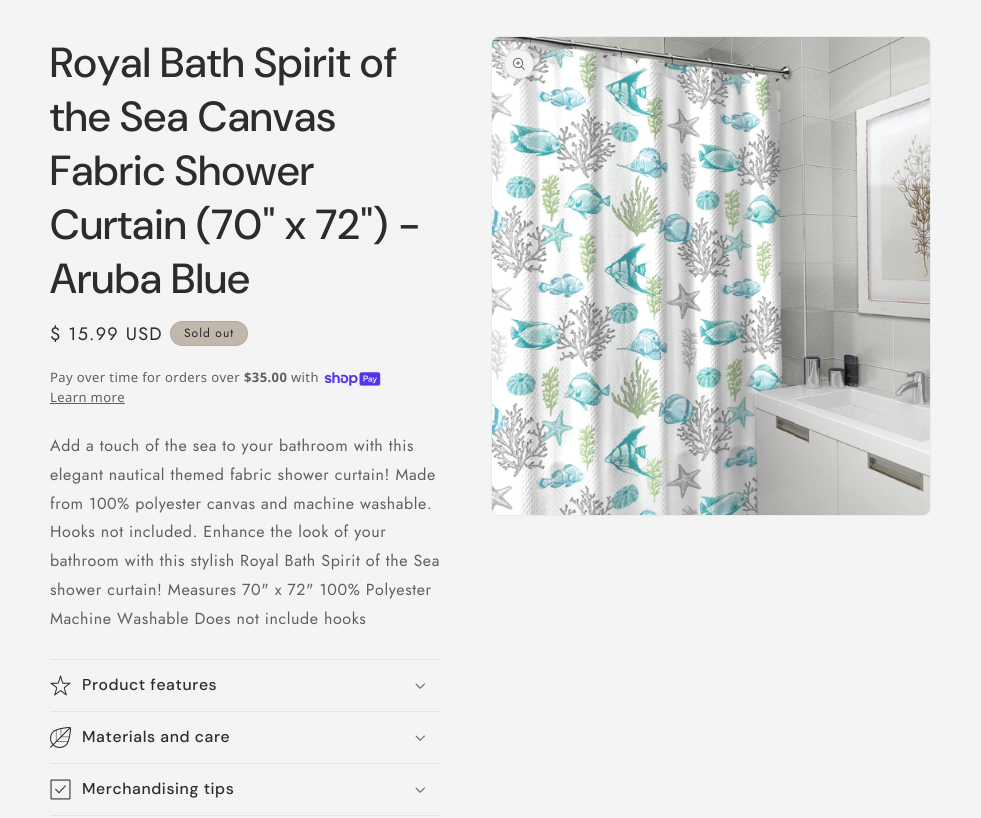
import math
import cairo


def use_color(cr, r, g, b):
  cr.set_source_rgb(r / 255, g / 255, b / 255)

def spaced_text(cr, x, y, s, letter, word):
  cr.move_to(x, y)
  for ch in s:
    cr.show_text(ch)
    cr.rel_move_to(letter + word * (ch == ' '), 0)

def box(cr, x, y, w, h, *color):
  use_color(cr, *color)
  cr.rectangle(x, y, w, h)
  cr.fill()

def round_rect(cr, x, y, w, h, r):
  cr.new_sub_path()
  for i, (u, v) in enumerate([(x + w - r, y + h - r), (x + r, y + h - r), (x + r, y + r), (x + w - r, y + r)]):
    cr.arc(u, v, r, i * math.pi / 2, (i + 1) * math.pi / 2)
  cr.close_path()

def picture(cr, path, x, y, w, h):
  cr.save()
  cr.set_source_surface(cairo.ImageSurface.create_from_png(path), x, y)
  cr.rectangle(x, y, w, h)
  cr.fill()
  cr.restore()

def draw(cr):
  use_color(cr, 244, 244, 244)
  cr.paint()
  use_color(cr, 194, 183, 172)
  round_rect(cr, 170, 321, 78, 25, 12.5)
  cr.fill()
  round_rect(cr, 170.5, 321.5, 77, 24, 12)
  cr.set_source_rgba(0.149, 0.149, 0.149, 0.1)
  cr.set_line_width(1)
  cr.stroke()
  picture(cr, "img_01.png", 324, 372, 57, 14)
  box(cr, 50, 403, 75, 1, 93, 94, 95)
  box(cr, 50, 659, 391, 1, 228, 228, 228)
  box(cr, 50, 711, 391, 1, 228, 228, 228)
  picture(cr, "img_02.png", 50, 675, 21, 21)
  picture(cr, "img_03.png", 415, 683, 10, 6)
  box(cr, 50, 763, 391, 1, 228, 228, 228)
  picture(cr, "img_04.png", 50, 727, 21, 21)
  picture(cr, "img_03.png", 415, 735, 10, 6)
  box(cr, 50, 815, 391, 1, 228, 228, 228)
  picture(cr, "img_05.png", 50, 779, 21, 21)
  picture(cr, "img_03.png", 415, 787, 10, 6)
  round_rect(cr, 491.5, 36.5, 439, 479, 7.5)
  use_color(cr, 234, 234, 234)
  cr.stroke()
  picture(cr, "img_06.png", 492, 37, 438, 478)
  use_color(cr, 244, 244, 244)
  cr.arc(519, 64, 15, 0, 2 * math.pi)
  cr.fill()
  cr.arc(519, 64, 14.5, 0, 2 * math.pi)
  cr.set_source_rgba(0.169, 0.173, 0.176, 0.1)
  cr.stroke()
  picture(cr, "img_07.png", 513, 58, 12, 12)
  cr.select_font_face("DM Sans Medium")
  cr.set_font_size(42)
  use_color(cr, 43, 44, 45)
  spaced_text(cr, 50, 77, "Royal Bath Spirit of", 0.6, 0)
  spaced_text(cr, 50, 131, "the Sea Canvas", 0.6, 0)
  spaced_text(cr, 50, 185, "Fabric Shower", 0.6, 0)
  spaced_text(cr, 50, 239, "Curtain (70\" x 72\") -", 0.6, 0)
  spaced_text(cr, 50, 293, "Aruba Blue", 0.6, 0)
  cr.select_font_face("Jost")
  cr.set_font_size(18)
  spaced_text(cr, 50, 340, "$ 15.99 USD", 1.25, 0)
  cr.set_font_size(12)
  use_color(cr, 38, 38, 38)
  spaced_text(cr, 184, 337, "Sold out", 1, 0)
  cr.select_font_face("Noto Sans")
  cr.set_font_size(13)
  use_color(cr, 93, 94, 95)
  spaced_text(cr, 50, 382, "Pay over time for orders over", 0.4, 0)
  cr.select_font_face("Noto Sans", cairo.FONT_SLANT_NORMAL, cairo.FONT_WEIGHT_BOLD)
  spaced_text(cr, 244, 382, "$35.00", 0.4, 0)
  cr.select_font_face("Noto Sans")
  spaced_text(cr, 291, 382, "with", 0.4, 0)
  spaced_text(cr, 50, 402, "Learn more", 0.4, 0)
  cr.select_font_face("Jost")
  cr.set_font_size(16)
  spaced_text(cr, 50, 451, "Add a touch of the sea to your bathroom with this", 0.6, 0)
  spaced_text(cr, 50, 480, "elegant nautical themed fabric shower curtain! Made", 0.6, 0)
  spaced_text(cr, 50, 509, "from 100% polyester canvas and machine washable.", 0.6, 0)
  spaced_text(cr, 50, 537, "Hooks not included. Enhance the look of your", 0.6, 0)
  spaced_text(cr, 50, 566, "bathroom with this stylish Royal Bath Spirit of the Sea", 0.6, 0)
  spaced_text(cr, 50, 595, "shower curtain! Measures 70\" x 72\" 100% Polyester", 0.6, 0)
  spaced_text(cr, 50, 624, "Machine Washable Does not include hooks", 0.6, 0)
  cr.select_font_face("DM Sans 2 Medium")
  cr.set_font_size(15.75)
  use_color(cr, 43, 44, 45)
  spaced_text(cr, 82, 690, "Product features", 0.6, 0)
  spaced_text(cr, 82, 742, "Materials and care", 0.6, 0)
  spaced_text(cr, 82, 794, "Merchandising tips", 0.6, 0)


surface = cairo.ImageSurface(cairo.FORMAT_RGB24, 981, 818)
cr = cairo.Context(surface)
options = cairo.FontOptions()
options.set_hint_metrics(cairo.HINT_METRICS_OFF)
options.set_hint_style(cairo.HINT_STYLE_NONE)
cr.set_font_options(options)
cr.set_miter_limit(4)
draw(cr)
surface.write_to_png("out.png")
